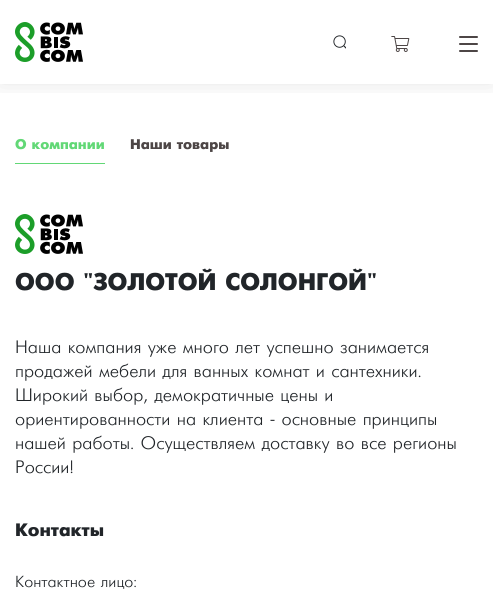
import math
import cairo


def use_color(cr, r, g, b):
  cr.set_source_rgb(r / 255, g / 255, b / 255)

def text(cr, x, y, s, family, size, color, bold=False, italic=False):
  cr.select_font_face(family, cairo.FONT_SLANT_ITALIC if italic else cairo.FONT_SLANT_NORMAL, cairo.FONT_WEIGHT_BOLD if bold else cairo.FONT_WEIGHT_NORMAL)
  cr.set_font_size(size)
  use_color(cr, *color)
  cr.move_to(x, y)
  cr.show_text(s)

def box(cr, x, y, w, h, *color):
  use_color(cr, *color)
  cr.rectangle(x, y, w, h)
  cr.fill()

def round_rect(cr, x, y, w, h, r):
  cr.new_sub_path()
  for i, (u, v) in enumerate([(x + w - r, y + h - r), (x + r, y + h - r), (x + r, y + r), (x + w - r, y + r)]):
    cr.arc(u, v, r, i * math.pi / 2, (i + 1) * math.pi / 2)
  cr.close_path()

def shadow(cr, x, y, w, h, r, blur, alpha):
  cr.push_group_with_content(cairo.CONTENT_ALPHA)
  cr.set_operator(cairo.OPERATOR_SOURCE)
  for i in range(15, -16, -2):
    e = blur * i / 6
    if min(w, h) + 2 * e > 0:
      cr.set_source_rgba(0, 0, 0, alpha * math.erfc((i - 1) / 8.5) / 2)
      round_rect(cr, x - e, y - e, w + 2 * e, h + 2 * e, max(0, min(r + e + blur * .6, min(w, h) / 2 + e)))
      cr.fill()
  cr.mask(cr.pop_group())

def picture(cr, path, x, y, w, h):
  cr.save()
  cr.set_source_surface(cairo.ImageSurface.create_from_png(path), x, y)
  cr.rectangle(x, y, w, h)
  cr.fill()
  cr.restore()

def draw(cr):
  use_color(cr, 255, 255, 255)
  cr.paint()
  cr.save()
  cr.rectangle(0, 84, 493, 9)
  cr.clip()
  use_color(cr, 0, 0, 0)
  shadow(cr, 0, -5, 493, 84, 0, 12.5, 0.15)
  cr.restore()
  picture(cr, "img_01.png", 15, 22, 68, 40)
  picture(cr, "img_02.png", 333, 35, 13, 14)
  picture(cr, "img_03.png", 391, 36, 19, 16)
  use_color(cr, 77, 70, 70)
  round_rect(cr, 459, 36, 19, 2, 1)
  cr.fill()
  round_rect(cr, 459, 43, 19, 2, 1)
  cr.fill()
  round_rect(cr, 459, 50, 19, 2, 1)
  cr.fill()
  box(cr, 15, 163, 90, 1, 98, 216, 118)
  picture(cr, "img_01.png", 15, 214, 68, 40)
  text(cr, 15, 149, "О компании", "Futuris", 14, (98, 216, 118), bold=True)
  text(cr, 130, 149, "Наши товары", "Futuris", 14, (77, 70, 70), bold=True)
  text(cr, 15, 290, "ООО \"ЗОЛОТОЙ СОЛОНГОЙ\"", "Futuris", 24, (33, 37, 41), bold=True)
  text(cr, 15, 353, "Наша компания уже много лет успешно занимается", "Futuris", 18, (33, 37, 41))
  text(cr, 15, 377, "продажей мебели для ванных комнат и сантехники.", "Futuris", 18, (33, 37, 41))
  text(cr, 15, 401, "Широкий выбор, демократичные цены и", "Futuris", 18, (33, 37, 41))
  text(cr, 15, 425, "ориентированности на клиента - основные принципы", "Futuris", 18, (33, 37, 41))
  text(cr, 15, 449, "нашей работы. Осуществляем доставку во все регионы", "Futuris", 18, (33, 37, 41))
  text(cr, 15, 473, "России!", "Futuris", 18, (33, 37, 41))
  text(cr, 15, 536, "Контакты", "Futuris", 18, (33, 37, 41), bold=True)
  text(cr, 15, 587, "Контактное лицо:", "Futuris", 16, (33, 37, 41))


surface = cairo.ImageSurface(cairo.FORMAT_RGB24, 493, 593)
cr = cairo.Context(surface)
options = cairo.FontOptions()
options.set_hint_metrics(cairo.HINT_METRICS_OFF)
options.set_hint_style(cairo.HINT_STYLE_NONE)
cr.set_font_options(options)
cr.set_miter_limit(4)
draw(cr)
surface.write_to_png("out.png")
